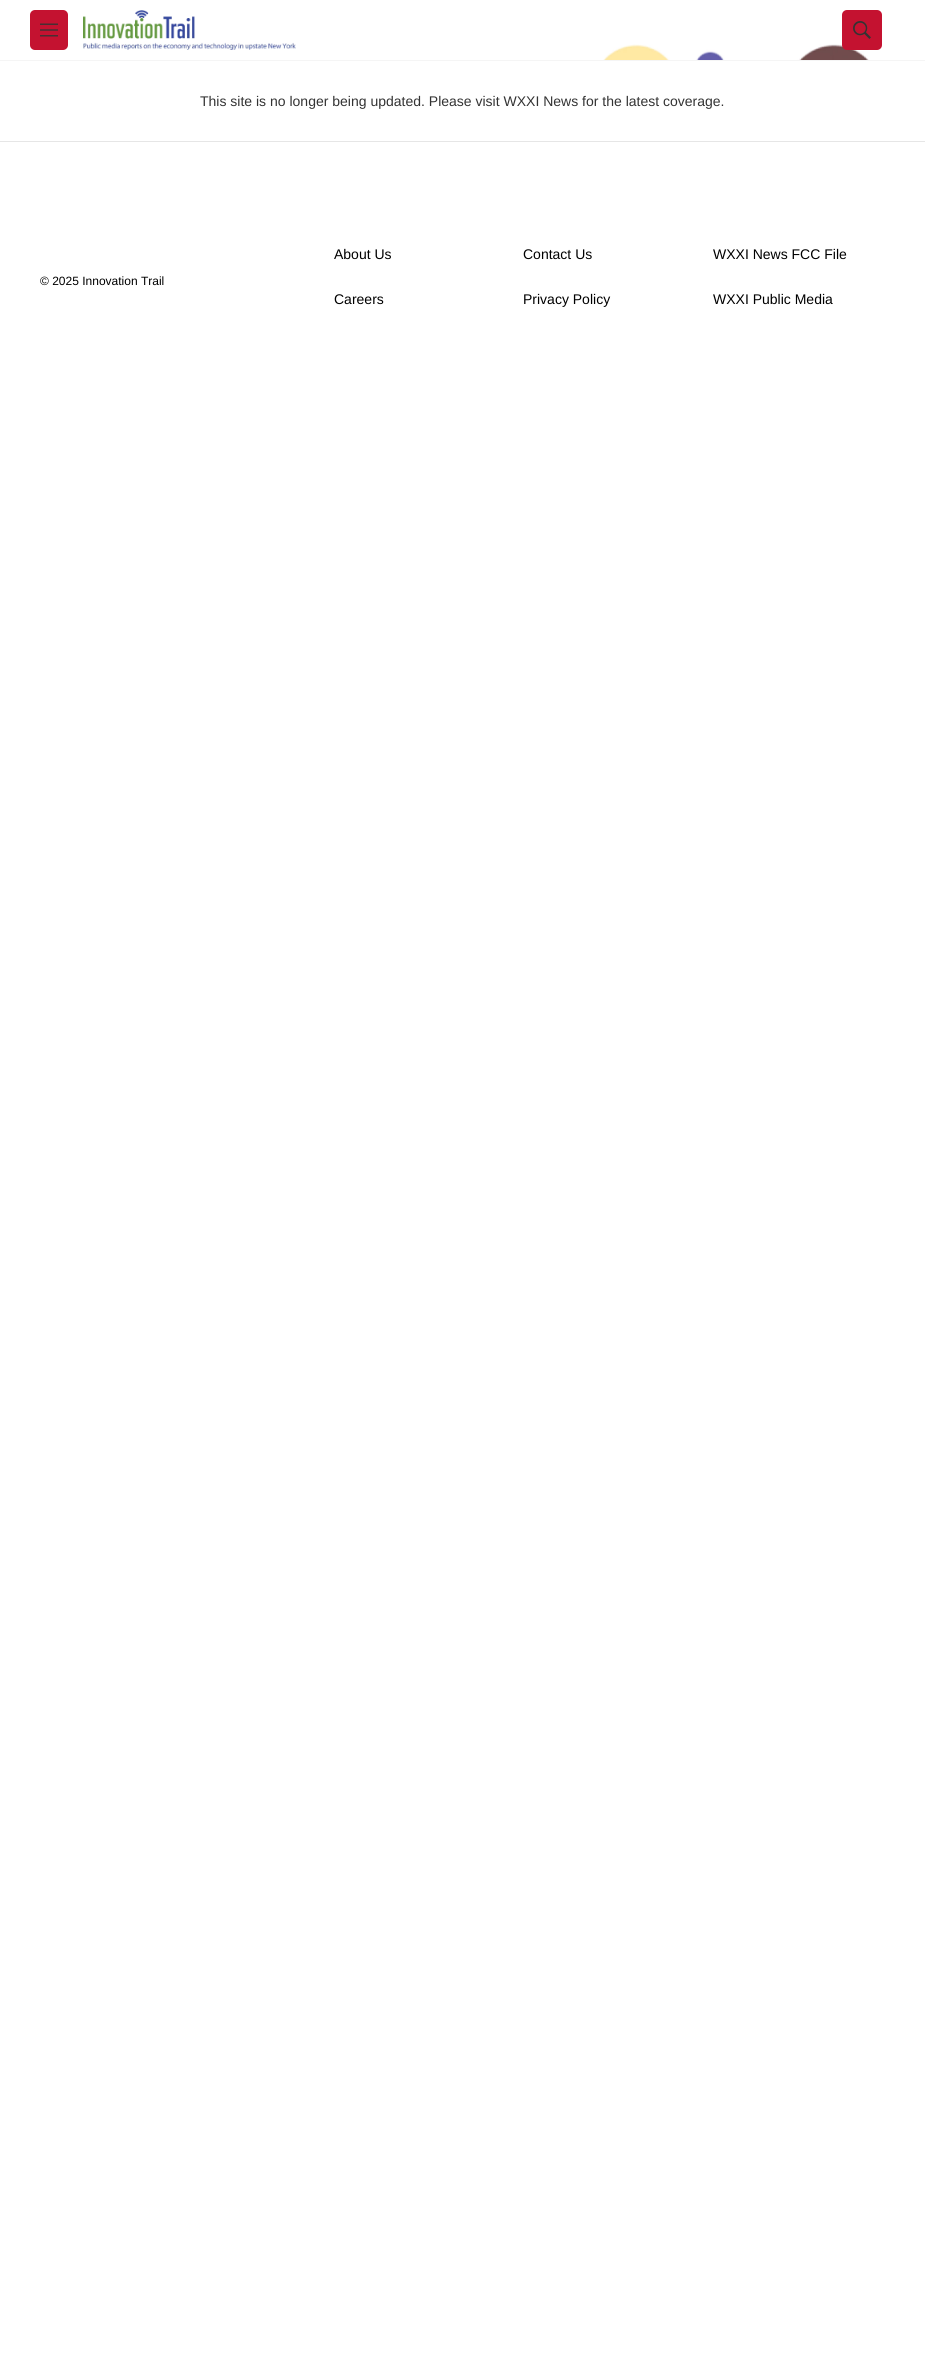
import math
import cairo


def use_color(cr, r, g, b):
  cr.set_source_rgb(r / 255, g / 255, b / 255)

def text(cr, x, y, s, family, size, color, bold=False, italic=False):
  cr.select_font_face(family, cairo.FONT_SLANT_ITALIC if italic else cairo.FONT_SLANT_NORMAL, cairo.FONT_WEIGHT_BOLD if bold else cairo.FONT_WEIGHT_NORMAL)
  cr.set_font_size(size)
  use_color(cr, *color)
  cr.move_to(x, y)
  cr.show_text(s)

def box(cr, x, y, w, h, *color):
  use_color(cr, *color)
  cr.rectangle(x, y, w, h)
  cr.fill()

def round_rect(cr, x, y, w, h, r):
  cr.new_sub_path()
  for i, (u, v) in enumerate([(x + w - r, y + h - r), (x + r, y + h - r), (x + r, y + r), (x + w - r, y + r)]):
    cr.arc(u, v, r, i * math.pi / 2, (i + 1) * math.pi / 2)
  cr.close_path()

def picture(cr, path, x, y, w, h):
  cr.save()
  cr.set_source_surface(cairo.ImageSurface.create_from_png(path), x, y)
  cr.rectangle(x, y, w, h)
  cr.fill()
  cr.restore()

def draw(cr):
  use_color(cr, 255, 255, 255)
  cr.paint()
  box(cr, 0, 60, 925, 1, 245, 245, 245)
  use_color(cr, 196, 18, 48)
  round_rect(cr, 30, 10, 38, 40, 5)
  cr.fill()
  picture(cr, "img_01.png", 40, 23, 18, 14)
  picture(cr, "img_02.png", 83, 10, 213, 40)
  picture(cr, "img_04.png", 603, 44, 266, 16)
  round_rect(cr, 842, 10, 40, 40, 5)
  cr.fill()
  picture(cr, "img_03.png", 853, 21, 18, 18)
  box(cr, 0, 141, 925, 1, 230, 230, 230)
  text(cr, 200, 106, "This site is no longer being updated. Please visit WXXI News for the latest coverage.", "Liberation Sans", 14, (51, 51, 51))
  text(cr, 40, 285, "© 2025 Innovation Trail", "Liberation Sans", 12, (0, 0, 0))
  text(cr, 334, 259, "About Us", "Liberation Sans", 14, (0, 0, 0))
  text(cr, 523, 259, "Contact Us", "Liberation Sans", 14, (0, 0, 0))
  text(cr, 713, 259, "WXXI News FCC File", "Liberation Sans", 14, (0, 0, 0))
  text(cr, 334, 304, "Careers", "Liberation Sans", 14, (0, 0, 0))
  text(cr, 523, 304, "Privacy Policy", "Liberation Sans", 14, (0, 0, 0))
  text(cr, 713, 304, "WXXI Public Media", "Liberation Sans", 14, (0, 0, 0))


surface = cairo.ImageSurface(cairo.FORMAT_RGB24, 925, 2378)
cr = cairo.Context(surface)
options = cairo.FontOptions()
options.set_hint_metrics(cairo.HINT_METRICS_OFF)
options.set_hint_style(cairo.HINT_STYLE_NONE)
cr.set_font_options(options)
cr.set_miter_limit(4)
draw(cr)
surface.write_to_png("out.png")
